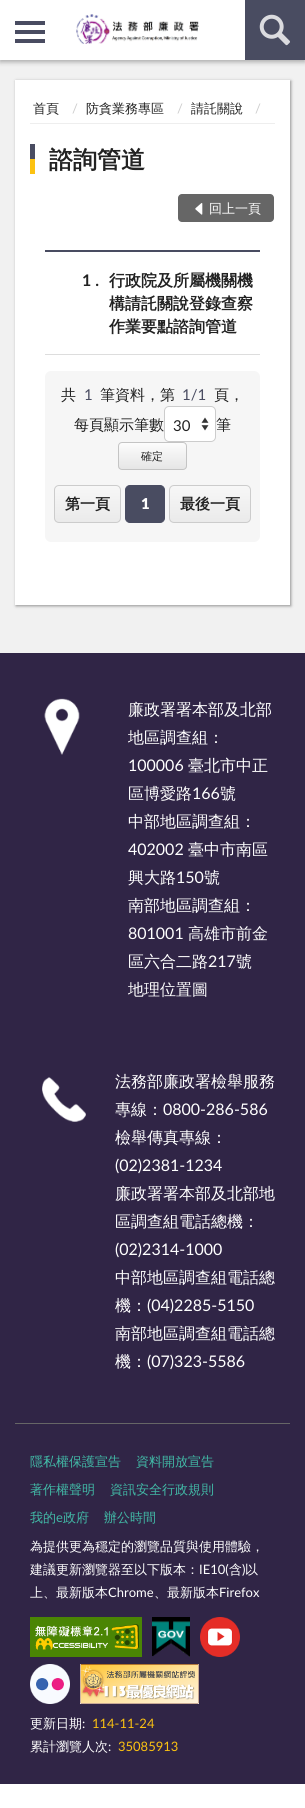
import math
import cairo


def use_color(cr, r, g, b):
  cr.set_source_rgb(r / 255, g / 255, b / 255)

def text(cr, x, y, s, family, size, color, bold=False, italic=False):
  cr.select_font_face(family, cairo.FONT_SLANT_ITALIC if italic else cairo.FONT_SLANT_NORMAL, cairo.FONT_WEIGHT_BOLD if bold else cairo.FONT_WEIGHT_NORMAL)
  cr.set_font_size(size)
  use_color(cr, *color)
  cr.move_to(x, y)
  cr.show_text(s)

def box(cr, x, y, w, h, *color):
  use_color(cr, *color)
  cr.rectangle(x, y, w, h)
  cr.fill()

def round_rect(cr, x, y, w, h, r):
  cr.new_sub_path()
  for i, (u, v) in enumerate([(x + w - r, y + h - r), (x + r, y + h - r), (x + r, y + r), (x + w - r, y + r)]):
    cr.arc(u, v, r, i * math.pi / 2, (i + 1) * math.pi / 2)
  cr.close_path()

def shadow(cr, x, y, w, h, r, blur, alpha):
  cr.push_group_with_content(cairo.CONTENT_ALPHA)
  cr.set_operator(cairo.OPERATOR_SOURCE)
  for i in range(15, -16, -2):
    e = blur * i / 6
    if min(w, h) + 2 * e > 0:
      cr.set_source_rgba(0, 0, 0, alpha * math.erfc((i - 1) / 8.5) / 2)
      round_rect(cr, x - e, y - e, w + 2 * e, h + 2 * e, max(0, min(r + e + blur * .6, min(w, h) / 2 + e)))
      cr.fill()
  cr.mask(cr.pop_group())

def picture(cr, path, x, y, w, h):
  cr.save()
  cr.set_source_surface(cairo.ImageSurface.create_from_png(path), x, y)
  cr.rectangle(x, y, w, h)
  cr.fill()
  cr.restore()

def draw(cr):
  use_color(cr, 255, 255, 255)
  cr.paint()
  box(cr, 0, 60, 305, 593, 241, 241, 241)
  use_color(cr, 0, 0, 0)
  shadow(cr, 0, 2, 305, 60, 0, 2.5, 0.3)
  box(cr, 0, 0, 245, 60, 255, 255, 255)
  box(cr, 15, 21, 30, 4, 73, 76, 97)
  box(cr, 15, 30, 30, 4, 73, 76, 97)
  box(cr, 15, 39, 30, 4, 73, 76, 97)
  picture(cr, "img_01.png", 76, 14, 123, 30)
  box(cr, 245, 0, 60, 60, 73, 76, 97)
  picture(cr, "img_02.png", 259, 14, 31, 32)
  use_color(cr, 0, 0, 0)
  shadow(cr, 16, 81, 275, 525, 0, 1.5, 0.4)
  box(cr, 15, 80, 275, 525, 255, 255, 255)
  box(cr, 30, 123, 245, 1, 238, 238, 238)
  box(cr, 30, 144, 5, 15, 73, 76, 97)
  box(cr, 30, 159, 5, 15, 252, 194, 17)
  use_color(cr, 102, 102, 102)
  round_rect(cr, 178, 194, 96, 28, 4)
  cr.fill()
  picture(cr, "img_03.png", 195, 203, 8, 12)
  box(cr, 45, 250, 215, 2, 73, 76, 97)
  box(cr, 45, 354, 215, 1, 221, 221, 221)
  use_color(cr, 246, 246, 246)
  round_rect(cr, 45, 371, 215, 171, 6)
  cr.fill()
  use_color(cr, 255, 255, 255)
  round_rect(cr, 164, 406, 52, 36, 5)
  cr.fill()
  picture(cr, "img_04.png", 201, 417, 8, 14)
  round_rect(cr, 164.5, 406.5, 51, 35, 4.5)
  use_color(cr, 204, 204, 204)
  cr.set_line_width(1)
  cr.stroke()
  cr.save()
  round_rect(cr, 118, 442, 69, 28, 4)
  cr.clip()
  gradient = cairo.LinearGradient(153, 443, 153, 469)
  gradient.add_color_stop_rgba(0, 0.988, 0.988, 0.988, 1)
  gradient.add_color_stop_rgba(1, 0.902, 0.902, 0.902, 1)
  cr.set_source(gradient)
  cr.rectangle(118, 443, 69, 26)
  cr.fill()
  cr.restore()
  round_rect(cr, 118.5, 442.5, 68, 27, 3.5)
  use_color(cr, 196, 196, 196)
  cr.stroke()
  cr.save()
  round_rect(cr, 54, 485, 67, 38, 5)
  cr.clip()
  gradient = cairo.LinearGradient(88, 486, 88, 522)
  gradient.add_color_stop_rgba(0, 0.969, 0.969, 0.969, 1)
  gradient.add_color_stop_rgba(1, 0.918, 0.918, 0.918, 1)
  cr.set_source(gradient)
  cr.rectangle(54, 486, 67, 36)
  cr.fill()
  cr.restore()
  round_rect(cr, 54.5, 485.5, 66, 37, 4.5)
  use_color(cr, 204, 204, 204)
  cr.stroke()
  use_color(cr, 73, 76, 97)
  round_rect(cr, 125.5, 485.5, 39, 37, 4.5)
  cr.fill_preserve()
  cr.stroke()
  cr.save()
  round_rect(cr, 169, 485, 82, 38, 5)
  cr.clip()
  gradient = cairo.LinearGradient(210, 486, 210, 522)
  gradient.add_color_stop_rgba(0, 0.969, 0.969, 0.969, 1)
  gradient.add_color_stop_rgba(1, 0.918, 0.918, 0.918, 1)
  cr.set_source(gradient)
  cr.rectangle(169, 486, 82, 36)
  cr.fill()
  cr.restore()
  round_rect(cr, 169.5, 485.5, 81, 37, 4.5)
  use_color(cr, 204, 204, 204)
  cr.stroke()
  box(cr, 0, 653, 305, 1131, 48, 37, 70)
  picture(cr, "img_05.png", 44, 698, 36, 57)
  picture(cr, "img_06.png", 42, 1077, 44, 45)
  box(cr, 15, 1423, 275, 1, 102, 102, 102)
  picture(cr, "img_07.png", 30, 1617, 112, 40)
  picture(cr, "img_08.png", 152, 1617, 38, 40)
  picture(cr, "img_09.png", 200, 1617, 40, 40)
  picture(cr, "img_10.png", 30, 1664, 40, 40)
  picture(cr, "img_11.png", 80, 1664, 119, 40)
  text(cr, 33, 113, "首頁", "WenQuanYi Zen Hei Medium", 13, (34, 34, 34))
  text(cr, 72, 113, "/", "Lato", 13, (204, 204, 204))
  text(cr, 86, 113, "防貪業務專區", "WenQuanYi Zen Hei Medium", 13, (34, 34, 34))
  text(cr, 177, 113, "/", "Lato", 13, (204, 204, 204))
  text(cr, 191, 113, "請託關說", "WenQuanYi Zen Hei Medium", 13, (34, 34, 34))
  text(cr, 255, 113, "/", "Lato", 13, (204, 204, 204))
  text(cr, 49, 168, "諮詢管道", "WenQuanYi Zen Hei", 24, (34, 34, 34), bold=True)
  text(cr, 209, 213, "回上一頁", "WenQuanYi Zen Hei Medium", 13, (255, 255, 255))
  text(cr, 82, 286, "1 .", "Lato", 16, (34, 34, 34), bold=True)
  text(cr, 109, 286, "行政院及所屬機關機", "WenQuanYi Zen Hei", 16, (34, 34, 34), bold=True)
  text(cr, 109, 309, "構請託關說登錄查察", "WenQuanYi Zen Hei", 16, (34, 34, 34), bold=True)
  text(cr, 109, 332, "作業要點諮詢管道", "WenQuanYi Zen Hei", 16, (34, 34, 34), bold=True)
  text(cr, 61, 400, "共", "WenQuanYi Zen Hei Medium", 15, (34, 34, 34))
  text(cr, 84, 400, "1", "Lato", 15, (73, 76, 97))
  text(cr, 100, 400, "筆資料，第", "WenQuanYi Zen Hei Medium", 15, (34, 34, 34))
  text(cr, 182, 400, "1/1", "Lato", 15, (73, 76, 97))
  text(cr, 214, 400, "頁，", "WenQuanYi Zen Hei Medium", 15, (34, 34, 34))
  text(cr, 74, 430, "每頁顯示筆數", "WenQuanYi Zen Hei Medium", 15, (34, 34, 34))
  text(cr, 173, 431, "30", "Lato", 15, (34, 34, 34))
  text(cr, 216, 430, "筆", "WenQuanYi Zen Hei Medium", 15, (34, 34, 34))
  text(cr, 141, 460, "確定", "WenQuanYi Zen Hei Medium", 11, (34, 34, 34))
  text(cr, 65, 509, "第一頁", "WenQuanYi Zen Hei", 15, (34, 34, 34), bold=True)
  text(cr, 141, 509, "1", "Lato ExtraBold", 15, (255, 255, 255))
  text(cr, 180, 509, "最後一頁", "WenQuanYi Zen Hei", 15, (34, 34, 34), bold=True)
  text(cr, 128, 715, "廉政署署本部及北部", "WenQuanYi Zen Hei Medium", 16, (255, 255, 255))
  text(cr, 128, 743, "地區調查組：", "WenQuanYi Zen Hei Medium", 16, (255, 255, 255))
  text(cr, 128, 771, "100006", "Lato", 16, (255, 255, 255))
  text(cr, 188, 771, "臺北市中正", "WenQuanYi Zen Hei Medium", 16, (255, 255, 255))
  text(cr, 128, 799, "區博愛路", "WenQuanYi Zen Hei Medium", 16, (255, 255, 255))
  text(cr, 192, 799, "166", "Lato", 16, (255, 255, 255))
  text(cr, 220, 799, "號", "WenQuanYi Zen Hei Medium", 16, (255, 255, 255))
  text(cr, 128, 827, "中部地區調查組：", "WenQuanYi Zen Hei Medium", 16, (255, 255, 255))
  text(cr, 128, 855, "402002", "Lato", 16, (255, 255, 255))
  text(cr, 188, 855, "臺中市南區", "WenQuanYi Zen Hei Medium", 16, (255, 255, 255))
  text(cr, 128, 883, "興大路", "WenQuanYi Zen Hei Medium", 16, (255, 255, 255))
  text(cr, 176, 883, "150", "Lato", 16, (255, 255, 255))
  text(cr, 204, 883, "號", "WenQuanYi Zen Hei Medium", 16, (255, 255, 255))
  text(cr, 128, 911, "南部地區調查組：", "WenQuanYi Zen Hei Medium", 16, (255, 255, 255))
  text(cr, 128, 939, "801001", "Lato", 16, (255, 255, 255))
  text(cr, 188, 939, "高雄市前金", "WenQuanYi Zen Hei Medium", 16, (255, 255, 255))
  text(cr, 128, 967, "區六合二路", "WenQuanYi Zen Hei Medium", 16, (255, 255, 255))
  text(cr, 208, 967, "217", "Lato", 16, (255, 255, 255))
  text(cr, 236, 967, "號", "WenQuanYi Zen Hei Medium", 16, (255, 255, 255))
  text(cr, 128, 995, "地理位置圖", "WenQuanYi Zen Hei Medium", 16, (255, 255, 255))
  text(cr, 115, 1087, "法務部廉政署檢舉服務", "WenQuanYi Zen Hei Medium", 16, (255, 255, 255))
  text(cr, 115, 1115, "專線：", "WenQuanYi Zen Hei Medium", 16, (255, 255, 255))
  text(cr, 163, 1115, "0800-286-586", "Lato", 16, (255, 255, 255))
  text(cr, 115, 1143, "檢舉傳真專線：", "WenQuanYi Zen Hei Medium", 16, (255, 255, 255))
  text(cr, 115, 1171, "(02)2381-1234", "Lato", 16, (255, 255, 255))
  text(cr, 115, 1199, "廉政署署本部及北部地", "WenQuanYi Zen Hei Medium", 16, (255, 255, 255))
  text(cr, 115, 1227, "區調查組電話總機：", "WenQuanYi Zen Hei Medium", 16, (255, 255, 255))
  text(cr, 115, 1255, "(02)2314-1000", "Lato", 16, (255, 255, 255))
  text(cr, 115, 1283, "中部地區調查組電話總", "WenQuanYi Zen Hei Medium", 16, (255, 255, 255))
  text(cr, 115, 1311, "機：", "WenQuanYi Zen Hei Medium", 16, (255, 255, 255))
  text(cr, 147, 1311, "(04)2285-5150", "Lato", 16, (255, 255, 255))
  text(cr, 115, 1339, "南部地區調查組電話總", "WenQuanYi Zen Hei Medium", 16, (255, 255, 255))
  text(cr, 115, 1367, "機：", "WenQuanYi Zen Hei Medium", 16, (255, 255, 255))
  text(cr, 147, 1367, "(07)323-5586", "Lato", 16, (255, 255, 255))
  text(cr, 30, 1466, "隱私權保護宣告", "WenQuanYi Zen Hei Medium", 13, (65, 185, 166))
  text(cr, 136, 1466, "資料開放宣告", "WenQuanYi Zen Hei Medium", 13, (65, 185, 166))
  text(cr, 30, 1494, "著作權聲明", "WenQuanYi Zen Hei Medium", 13, (65, 185, 166))
  text(cr, 110, 1494, "資訊安全行政規則", "WenQuanYi Zen Hei Medium", 13, (65, 185, 166))
  text(cr, 30, 1522, "我的", "WenQuanYi Zen Hei Medium", 13, (65, 185, 166))
  text(cr, 56, 1522, "e", "Lato", 13, (65, 185, 166))
  text(cr, 63, 1522, "政府", "WenQuanYi Zen Hei Medium", 13, (65, 185, 166))
  text(cr, 104, 1522, "辦公時間", "WenQuanYi Zen Hei Medium", 13, (65, 185, 166))
  text(cr, 30, 1551, "為提供更為穩定的瀏覽品質與使用體驗，", "WenQuanYi Zen Hei Medium", 13, (255, 255, 255))
  text(cr, 30, 1574, "建議更新瀏覽器至以下版本：", "WenQuanYi Zen Hei Medium", 13, (255, 255, 255))
  text(cr, 199, 1574, "IE10(", "Lato", 13, (255, 255, 255))
  text(cr, 229, 1574, "含", "WenQuanYi Zen Hei Medium", 13, (255, 255, 255))
  text(cr, 242, 1574, ")", "Lato", 13, (255, 255, 255))
  text(cr, 245, 1574, "以", "WenQuanYi Zen Hei Medium", 13, (255, 255, 255))
  text(cr, 30, 1597, "上、最新版本", "WenQuanYi Zen Hei Medium", 13, (255, 255, 255))
  text(cr, 108, 1597, "Chrome", "Lato", 13, (255, 255, 255))
  text(cr, 154, 1597, "、最新版本", "WenQuanYi Zen Hei Medium", 13, (255, 255, 255))
  text(cr, 219, 1597, "Firefox", "Lato", 13, (255, 255, 255))
  text(cr, 30, 1728, "更新日期", "WenQuanYi Zen Hei Medium", 13, (255, 255, 255))
  text(cr, 82, 1728, ":", "Lato", 13, (255, 255, 255))
  text(cr, 92, 1728, "114-11-24", "Lato", 13, (252, 194, 17))
  text(cr, 30, 1751, "累計瀏覽人次", "WenQuanYi Zen Hei Medium", 13, (255, 255, 255))
  text(cr, 108, 1751, ":", "Lato", 13, (255, 255, 255))
  text(cr, 118, 1751, "35085913", "Lato", 13, (252, 194, 17))


surface = cairo.ImageSurface(cairo.FORMAT_RGB24, 305, 1808)
cr = cairo.Context(surface)
options = cairo.FontOptions()
options.set_hint_metrics(cairo.HINT_METRICS_OFF)
options.set_hint_style(cairo.HINT_STYLE_NONE)
cr.set_font_options(options)
cr.set_miter_limit(4)
draw(cr)
surface.write_to_png("out.png")
